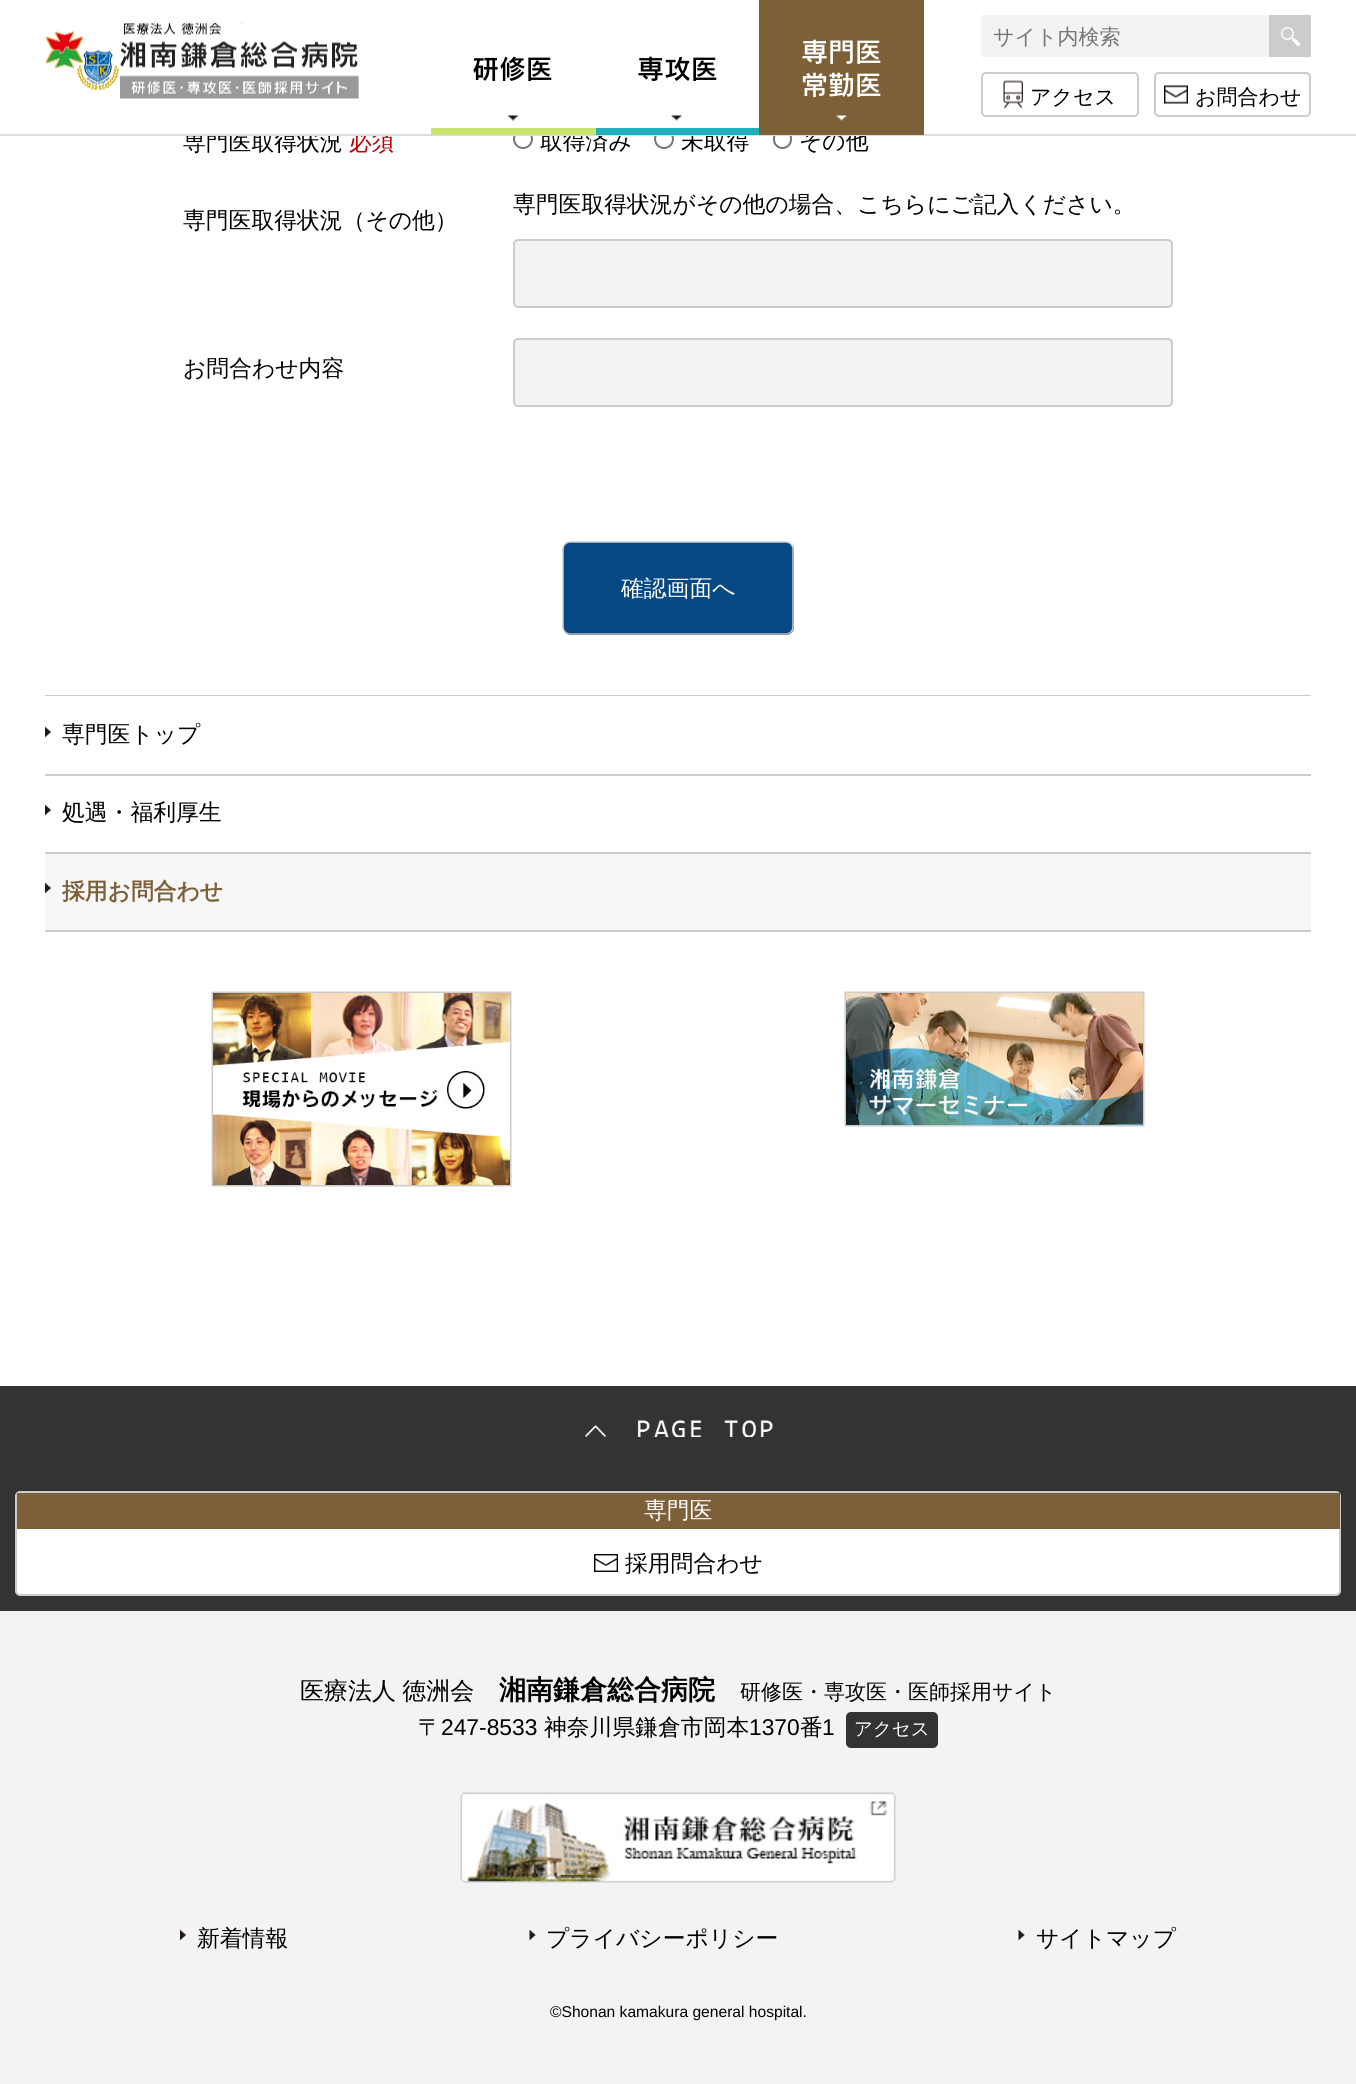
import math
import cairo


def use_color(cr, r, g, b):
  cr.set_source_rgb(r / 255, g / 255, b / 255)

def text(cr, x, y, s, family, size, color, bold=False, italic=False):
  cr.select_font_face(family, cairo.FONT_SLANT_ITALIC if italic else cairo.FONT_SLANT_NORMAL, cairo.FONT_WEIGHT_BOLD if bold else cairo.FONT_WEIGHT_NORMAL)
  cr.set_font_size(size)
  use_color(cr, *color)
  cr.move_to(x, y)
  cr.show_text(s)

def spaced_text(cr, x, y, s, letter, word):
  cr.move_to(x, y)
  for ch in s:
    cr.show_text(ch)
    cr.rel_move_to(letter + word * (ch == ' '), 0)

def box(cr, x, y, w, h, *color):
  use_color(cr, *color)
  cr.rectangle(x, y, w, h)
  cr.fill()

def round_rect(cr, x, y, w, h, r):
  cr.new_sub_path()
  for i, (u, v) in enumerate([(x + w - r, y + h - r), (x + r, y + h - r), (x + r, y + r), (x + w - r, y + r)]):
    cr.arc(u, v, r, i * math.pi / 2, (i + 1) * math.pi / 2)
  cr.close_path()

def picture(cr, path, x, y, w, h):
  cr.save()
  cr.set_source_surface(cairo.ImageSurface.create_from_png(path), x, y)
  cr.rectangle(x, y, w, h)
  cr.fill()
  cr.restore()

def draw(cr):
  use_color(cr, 255, 255, 255)
  cr.paint()
  picture(cr, "img_01.png", 45, 23, 314, 76)
  picture(cr, "img_02.png", 507, 115, 12, 6)
  picture(cr, "img_03.png", 671, 115, 11, 6)
  box(cr, 981, 15, 288, 42, 243, 243, 243)
  box(cr, 1269, 15, 42, 42, 204, 204, 204)
  picture(cr, "img_05.png", 1281, 27, 20, 20)
  round_rect(cr, 982, 73, 156, 43, 4)
  cr.stroke()
  picture(cr, "img_06.png", 1003, 80, 20, 29)
  round_rect(cr, 1155, 73, 155, 43, 4)
  cr.stroke()
  picture(cr, "img_07.png", 1164, 85, 24, 19)
  cr.arc(523, 139, 9, 0, 2 * math.pi)
  use_color(cr, 118, 118, 118)
  cr.stroke()
  cr.arc(664, 139, 9, 0, 2 * math.pi)
  cr.stroke()
  round_rect(cr, 774, 130, 17, 18, 8.5)
  cr.stroke()
  use_color(cr, 243, 243, 243)
  round_rect(cr, 514, 240, 658, 67, 4)
  cr.fill_preserve()
  use_color(cr, 204, 204, 204)
  cr.stroke()
  use_color(cr, 243, 243, 243)
  round_rect(cr, 514, 339, 658, 67, 4)
  cr.fill_preserve()
  use_color(cr, 204, 204, 204)
  cr.stroke()
  use_color(cr, 6, 72, 132)
  round_rect(cr, 563, 542, 231, 93, 8)
  cr.fill()
  cr.new_path()
  cr.move_to(791, 632)
  cr.curve_to(789.5, 633, 788, 634, 786, 634)
  cr.line_to(570, 634)
  cr.curve_to(568, 634, 566.5, 633, 565, 632)
  use_color(cr, 187, 187, 187)
  cr.set_line_width(1.5)
  cr.stroke()
  cr.new_path()
  cr.move_to(565, 632)
  cr.curve_to(564, 630.5, 563, 629, 563, 627)
  cr.line_to(563, 549)
  cr.curve_to(563, 547, 564, 545.5, 565, 544)
  cr.curve_to(566.5, 543, 568, 542, 570, 542)
  cr.line_to(786, 542)
  cr.curve_to(788, 542, 789.5, 543, 791, 544)
  cr.curve_to(792, 545.5, 793, 547, 793, 549)
  cr.line_to(793, 627)
  cr.curve_to(793, 629, 792, 630.5, 791, 632)
  use_color(cr, 204, 204, 204)
  cr.stroke()
  box(cr, 45, 695, 1266, 1, 204, 204, 204)
  box(cr, 45, 774, 1266, 2, 204, 204, 204)
  picture(cr, "img_08.png", 45, 726, 6, 12)
  box(cr, 45, 852, 1266, 2, 204, 204, 204)
  picture(cr, "img_08.png", 45, 804, 6, 12)
  box(cr, 45, 930, 1266, 2, 204, 204, 204)
  box(cr, 45, 854, 1266, 76, 247, 247, 247)
  picture(cr, "img_09.png", 45, 882, 6, 12)
  picture(cr, "img_10.png", 211, 991, 301, 196)
  picture(cr, "img_11.png", 844, 991, 301, 136)
  box(cr, 0, 1386, 1356, 225, 51, 51, 51)
  picture(cr, "img_12.png", 585, 1420, 188, 17)
  use_color(cr, 255, 255, 255)
  round_rect(cr, 16, 1492, 1324, 103, 4)
  cr.fill_preserve()
  use_color(cr, 204, 204, 204)
  cr.set_line_width(2)
  cr.stroke()
  box(cr, 17, 1493, 1323, 36, 125, 96, 56)
  picture(cr, "img_13.png", 594, 1554, 24, 18)
  box(cr, 0, 1611, 1356, 473, 243, 243, 243)
  use_color(cr, 51, 51, 51)
  round_rect(cr, 846, 1712, 92, 36, 5)
  cr.fill()
  picture(cr, "img_14.png", 460, 1792, 436, 91)
  picture(cr, "img_15.png", 180, 1929, 6, 12)
  picture(cr, "img_16.png", 529, 1929, 7, 12)
  picture(cr, "img_17.png", 1018, 1929, 7, 12)
  text(cr, 472, 79, "研修医", "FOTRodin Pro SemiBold", 27, (0, 0, 0))
  text(cr, 637, 79, "専攻医", "FOTRodin Pro SemiBold", 27, (0, 0, 0))
  text(cr, 993, 44, "サイト内検索", "WenQuanYi Zen Hei Medium", 21, (117, 117, 117))
  text(cr, 1030, 104, "アクセス", "WenQuanYi Zen Hei Medium", 21, (0, 0, 0))
  text(cr, 1195, 104, "お問合わせ", "WenQuanYi Zen Hei Medium", 21, (0, 0, 0))
  text(cr, 183, 150, "専門医取得状況", "WenQuanYi Zen Hei Medium", 22.8, (0, 0, 0))
  text(cr, 349, 150, "必須", "WenQuanYi Zen Hei Medium", 22.8, (183, 0, 0))
  text(cr, 540, 149, "取得済み", "WenQuanYi Zen Hei Medium", 22.8, (0, 0, 0))
  text(cr, 681, 149, "未取得", "WenQuanYi Zen Hei Medium", 22.8, (0, 0, 0))
  text(cr, 799, 149, "その他", "WenQuanYi Zen Hei Medium", 22.8, (0, 0, 0))
  box(cr, 0, 134, 1356, 2, 221, 221, 221)
  box(cr, 184, 129, 677, 5, 255, 255, 255)
  box(cr, 759, 0, 165, 135, 125, 96, 56)
  picture(cr, "img_04.png", 836, 115, 11, 6)
  text(cr, 801, 95, "常勤医", "FOTRodin Pro SemiBold", 27, (255, 255, 255))
  text(cr, 801, 62, "専門医", "FOTRodin Pro SemiBold", 27, (255, 255, 255))
  box(cr, 596, 128, 163, 7, 32, 176, 189)
  box(cr, 431, 128, 165, 7, 200, 227, 111)
  text(cr, 513, 212, "専門医取得状況がその他の場合、こちらにご記入ください。", "WenQuanYi Zen Hei Medium", 22.8, (0, 0, 0))
  text(cr, 183, 228, "専門医取得状況（その他）", "WenQuanYi Zen Hei Medium", 22.8, (0, 0, 0))
  text(cr, 183, 376, "お問合わせ内容", "WenQuanYi Zen Hei Medium", 22.8, (0, 0, 0))
  text(cr, 621, 596, "確認画面へ", "WenQuanYi Zen Hei Medium", 22.8, (255, 255, 255))
  text(cr, 62, 742, "専門医トップ", "WenQuanYi Zen Hei Medium", 22.8, (0, 0, 0))
  text(cr, 62, 820, "処遇・福利厚生", "WenQuanYi Zen Hei Medium", 22.8, (0, 0, 0))
  text(cr, 62, 899, "採用お問合わせ", "WenQuanYi Zen Hei", 22.8, (125, 96, 56), bold=True)
  text(cr, 644, 1518, "専門医", "WenQuanYi Zen Hei Medium", 22.8, (255, 255, 255))
  text(cr, 625, 1571, "採用問合わせ", "WenQuanYi Zen Hei Medium", 22.8, (0, 0, 0))
  cr.set_font_size(24)
  spaced_text(cr, 300, 1699, "医療法人 徳洲会", 0, -1)
  text(cr, 499, 1699, "湘南鎌倉総合病院", "WenQuanYi Zen Hei", 27, (0, 0, 0), bold=True)
  text(cr, 740, 1699, "研修医・専攻医・医師採用サイト", "WenQuanYi Zen Hei Medium", 21, (0, 0, 0))
  text(cr, 418, 1735, "〒", "WenQuanYi Zen Hei Medium", 22.8, (0, 0, 0))
  text(cr, 441, 1735, "247-8533", "Liberation Sans", 22.8, (0, 0, 0))
  text(cr, 544, 1735, "神奈川県鎌倉市岡本", "WenQuanYi Zen Hei Medium", 22.8, (0, 0, 0))
  text(cr, 749, 1735, "1370", "Liberation Sans", 22.8, (0, 0, 0))
  text(cr, 800, 1735, "番", "WenQuanYi Zen Hei Medium", 22.8, (0, 0, 0))
  text(cr, 822, 1735, "1", "Liberation Sans", 22.8, (0, 0, 0))
  text(cr, 854, 1735, "アクセス", "WenQuanYi Zen Hei Medium", 18.5, (255, 255, 255))
  text(cr, 197, 1946, "新着情報", "WenQuanYi Zen Hei Medium", 22.8, (0, 0, 0))
  text(cr, 546, 1946, "プライバシーポリシー", "WenQuanYi Zen Hei Medium", 22.8, (0, 0, 0))
  text(cr, 1036, 1946, "サイトマップ", "WenQuanYi Zen Hei Medium", 22.8, (0, 0, 0))
  text(cr, 550, 2017, "©Shonan kamakura general hospital.", "Liberation Sans", 15.6, (0, 0, 0))


surface = cairo.ImageSurface(cairo.FORMAT_RGB24, 1356, 2084)
cr = cairo.Context(surface)
options = cairo.FontOptions()
options.set_hint_metrics(cairo.HINT_METRICS_OFF)
options.set_hint_style(cairo.HINT_STYLE_NONE)
cr.set_font_options(options)
cr.set_miter_limit(4)
draw(cr)
surface.write_to_png("out.png")
